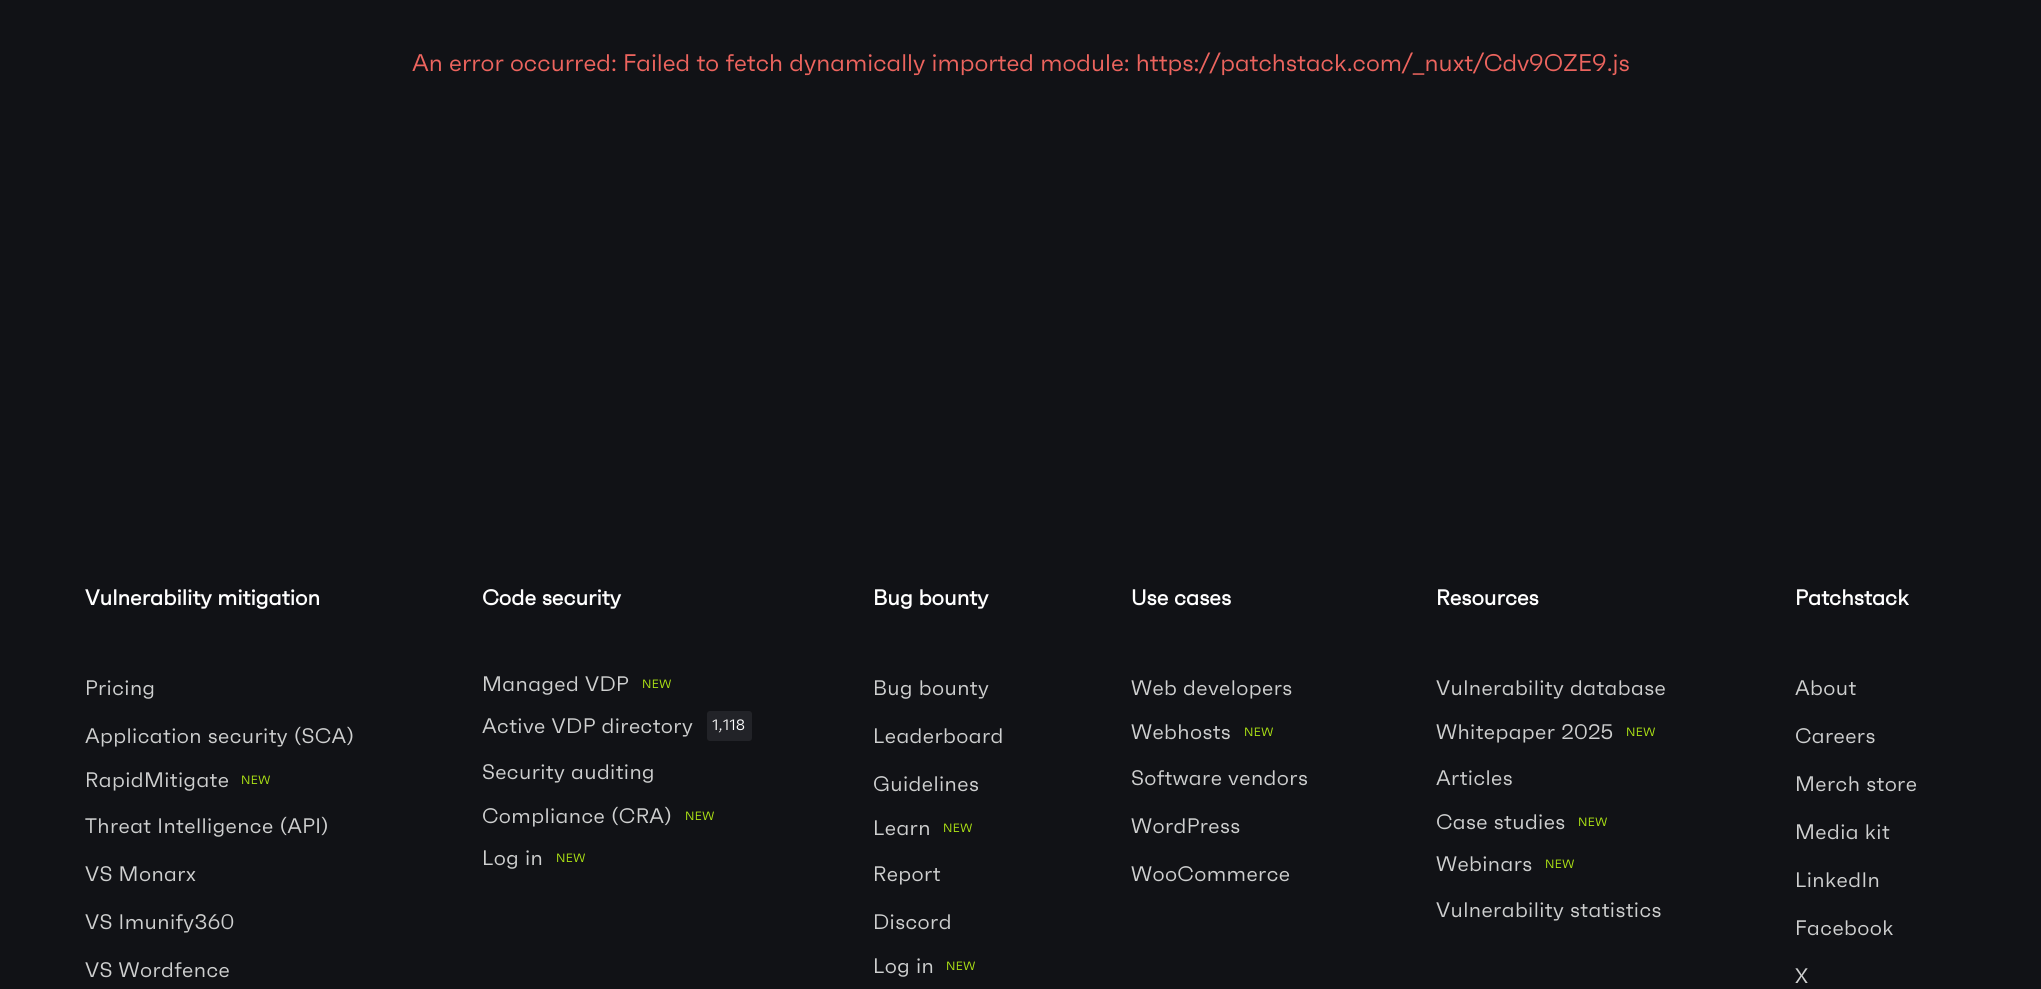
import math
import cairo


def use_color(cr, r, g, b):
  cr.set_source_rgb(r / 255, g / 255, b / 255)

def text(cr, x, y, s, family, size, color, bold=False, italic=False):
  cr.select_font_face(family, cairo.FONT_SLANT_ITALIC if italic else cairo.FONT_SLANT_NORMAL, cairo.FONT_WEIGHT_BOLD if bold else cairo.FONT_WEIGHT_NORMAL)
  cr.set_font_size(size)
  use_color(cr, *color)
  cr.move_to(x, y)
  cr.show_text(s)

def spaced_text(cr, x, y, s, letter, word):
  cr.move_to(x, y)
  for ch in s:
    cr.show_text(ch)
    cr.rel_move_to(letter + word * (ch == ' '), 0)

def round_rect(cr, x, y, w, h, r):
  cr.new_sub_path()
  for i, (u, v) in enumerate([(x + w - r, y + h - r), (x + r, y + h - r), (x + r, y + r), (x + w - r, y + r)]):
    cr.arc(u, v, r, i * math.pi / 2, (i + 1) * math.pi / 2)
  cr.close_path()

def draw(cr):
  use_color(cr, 17, 18, 22)
  cr.paint()
  use_color(cr, 34, 35, 40)
  round_rect(cr, 707, 711, 45, 30, 3)
  cr.fill()
  text(cr, 412, 71, "An error occurred: Failed to fetch dynamically imported module: https://patchstack.com/_nuxt/Cdv9OZE9.js", "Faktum", 24, (237, 100, 94))
  text(cr, 85, 605, "Vulnerability mitigation", "Faktum", 21.6, (255, 255, 255), bold=True)
  cr.select_font_face("Faktum")
  cr.set_font_size(21)
  use_color(cr, 207, 208, 208)
  spaced_text(cr, 85, 695, "Pricing", 0.4, 0)
  spaced_text(cr, 85, 743, "Application security (SCA)", 0.4, 0)
  spaced_text(cr, 85, 787, "RapidMitigate", 0.4, 0)
  cr.set_font_size(12)
  use_color(cr, 175, 230, 20)
  spaced_text(cr, 241, 784, "NEW", 0.4, 0)
  cr.set_font_size(21)
  use_color(cr, 207, 208, 208)
  spaced_text(cr, 85, 833, "Threat Intelligence (API)", 0.4, 0)
  spaced_text(cr, 85, 881, "VS Monarx", 0.4, 0)
  spaced_text(cr, 85, 929, "VS Imunify360", 0.4, 0)
  spaced_text(cr, 85, 977, "VS Wordfence", 0.4, 0)
  text(cr, 482, 605, "Code security", "Faktum", 21.6, (255, 255, 255), bold=True)
  cr.select_font_face("Faktum")
  cr.set_font_size(21)
  use_color(cr, 207, 208, 208)
  spaced_text(cr, 482, 691, "Managed VDP", 0.4, 0)
  cr.set_font_size(12)
  use_color(cr, 175, 230, 20)
  spaced_text(cr, 642, 688, "NEW", 0.4, 0)
  cr.set_font_size(21)
  use_color(cr, 207, 208, 208)
  spaced_text(cr, 482, 733, "Active VDP directory", 0.4, 0)
  cr.set_font_size(15)
  use_color(cr, 255, 255, 255)
  spaced_text(cr, 712, 730, "1,118", 0.4, 0)
  cr.set_font_size(21)
  use_color(cr, 207, 208, 208)
  spaced_text(cr, 482, 779, "Security auditing", 0.4, 0)
  spaced_text(cr, 482, 823, "Compliance (CRA)", 0.4, 0)
  cr.set_font_size(12)
  use_color(cr, 175, 230, 20)
  spaced_text(cr, 685, 820, "NEW", 0.4, 0)
  cr.set_font_size(21)
  use_color(cr, 207, 208, 208)
  spaced_text(cr, 482, 865, "Log in", 0.4, 0)
  cr.set_font_size(12)
  use_color(cr, 175, 230, 20)
  spaced_text(cr, 556, 862, "NEW", 0.4, 0)
  text(cr, 873, 605, "Bug bounty", "Faktum", 21.6, (255, 255, 255), bold=True)
  cr.select_font_face("Faktum")
  cr.set_font_size(21)
  use_color(cr, 207, 208, 208)
  spaced_text(cr, 873, 695, "Bug bounty", 0.4, 0)
  spaced_text(cr, 873, 743, "Leaderboard", 0.4, 0)
  spaced_text(cr, 873, 791, "Guidelines", 0.4, 0)
  spaced_text(cr, 873, 835, "Learn", 0.4, 0)
  cr.set_font_size(12)
  use_color(cr, 175, 230, 20)
  spaced_text(cr, 943, 832, "NEW", 0.4, 0)
  cr.set_font_size(21)
  use_color(cr, 207, 208, 208)
  spaced_text(cr, 873, 881, "Report", 0.4, 0)
  spaced_text(cr, 873, 929, "Discord", 0.4, 0)
  spaced_text(cr, 873, 973, "Log in", 0.4, 0)
  cr.set_font_size(12)
  use_color(cr, 175, 230, 20)
  spaced_text(cr, 946, 970, "NEW", 0.4, 0)
  text(cr, 1131, 605, "Use cases", "Faktum", 21.6, (255, 255, 255), bold=True)
  cr.select_font_face("Faktum")
  cr.set_font_size(21)
  use_color(cr, 207, 208, 208)
  spaced_text(cr, 1131, 695, "Web developers", 0.4, 0)
  spaced_text(cr, 1131, 739, "Webhosts", 0.4, 0)
  cr.set_font_size(12)
  use_color(cr, 175, 230, 20)
  spaced_text(cr, 1244, 736, "NEW", 0.4, 0)
  cr.set_font_size(21)
  use_color(cr, 207, 208, 208)
  spaced_text(cr, 1131, 785, "Software vendors", 0.4, 0)
  spaced_text(cr, 1131, 833, "WordPress", 0.4, 0)
  spaced_text(cr, 1131, 881, "WooCommerce", 0.4, 0)
  text(cr, 1436, 605, "Resources", "Faktum", 21.6, (255, 255, 255), bold=True)
  cr.select_font_face("Faktum")
  cr.set_font_size(21)
  use_color(cr, 207, 208, 208)
  spaced_text(cr, 1436, 695, "Vulnerability database", 0.4, 0)
  spaced_text(cr, 1436, 739, "Whitepaper 2025", 0.4, 0)
  cr.set_font_size(12)
  use_color(cr, 175, 230, 20)
  spaced_text(cr, 1626, 736, "NEW", 0.4, 0)
  cr.set_font_size(21)
  use_color(cr, 207, 208, 208)
  spaced_text(cr, 1436, 785, "Articles", 0.4, 0)
  spaced_text(cr, 1436, 829, "Case studies", 0.4, 0)
  cr.set_font_size(12)
  use_color(cr, 175, 230, 20)
  spaced_text(cr, 1578, 826, "NEW", 0.4, 0)
  cr.set_font_size(21)
  use_color(cr, 207, 208, 208)
  spaced_text(cr, 1436, 871, "Webinars", 0.4, 0)
  cr.set_font_size(12)
  use_color(cr, 175, 230, 20)
  spaced_text(cr, 1545, 868, "NEW", 0.4, 0)
  cr.set_font_size(21)
  use_color(cr, 207, 208, 208)
  spaced_text(cr, 1436, 917, "Vulnerability statistics", 0.4, 0)
  text(cr, 1795, 605, "Patchstack", "Faktum", 21.6, (255, 255, 255), bold=True)
  cr.select_font_face("Faktum")
  cr.set_font_size(21)
  use_color(cr, 207, 208, 208)
  spaced_text(cr, 1795, 695, "About", 0.4, 0)
  spaced_text(cr, 1795, 743, "Careers", 0.4, 0)
  spaced_text(cr, 1795, 791, "Merch store", 0.4, 0)
  spaced_text(cr, 1795, 839, "Media kit", 0.4, 0)
  spaced_text(cr, 1795, 887, "LinkedIn", 0.4, 0)
  spaced_text(cr, 1795, 935, "Facebook", 0.4, 0)
  spaced_text(cr, 1795, 983, "X", 0.4, 0)


surface = cairo.ImageSurface(cairo.FORMAT_RGB24, 2041, 989)
cr = cairo.Context(surface)
options = cairo.FontOptions()
options.set_hint_metrics(cairo.HINT_METRICS_OFF)
options.set_hint_style(cairo.HINT_STYLE_NONE)
cr.set_font_options(options)
cr.set_miter_limit(4)
draw(cr)
surface.write_to_png("out.png")
